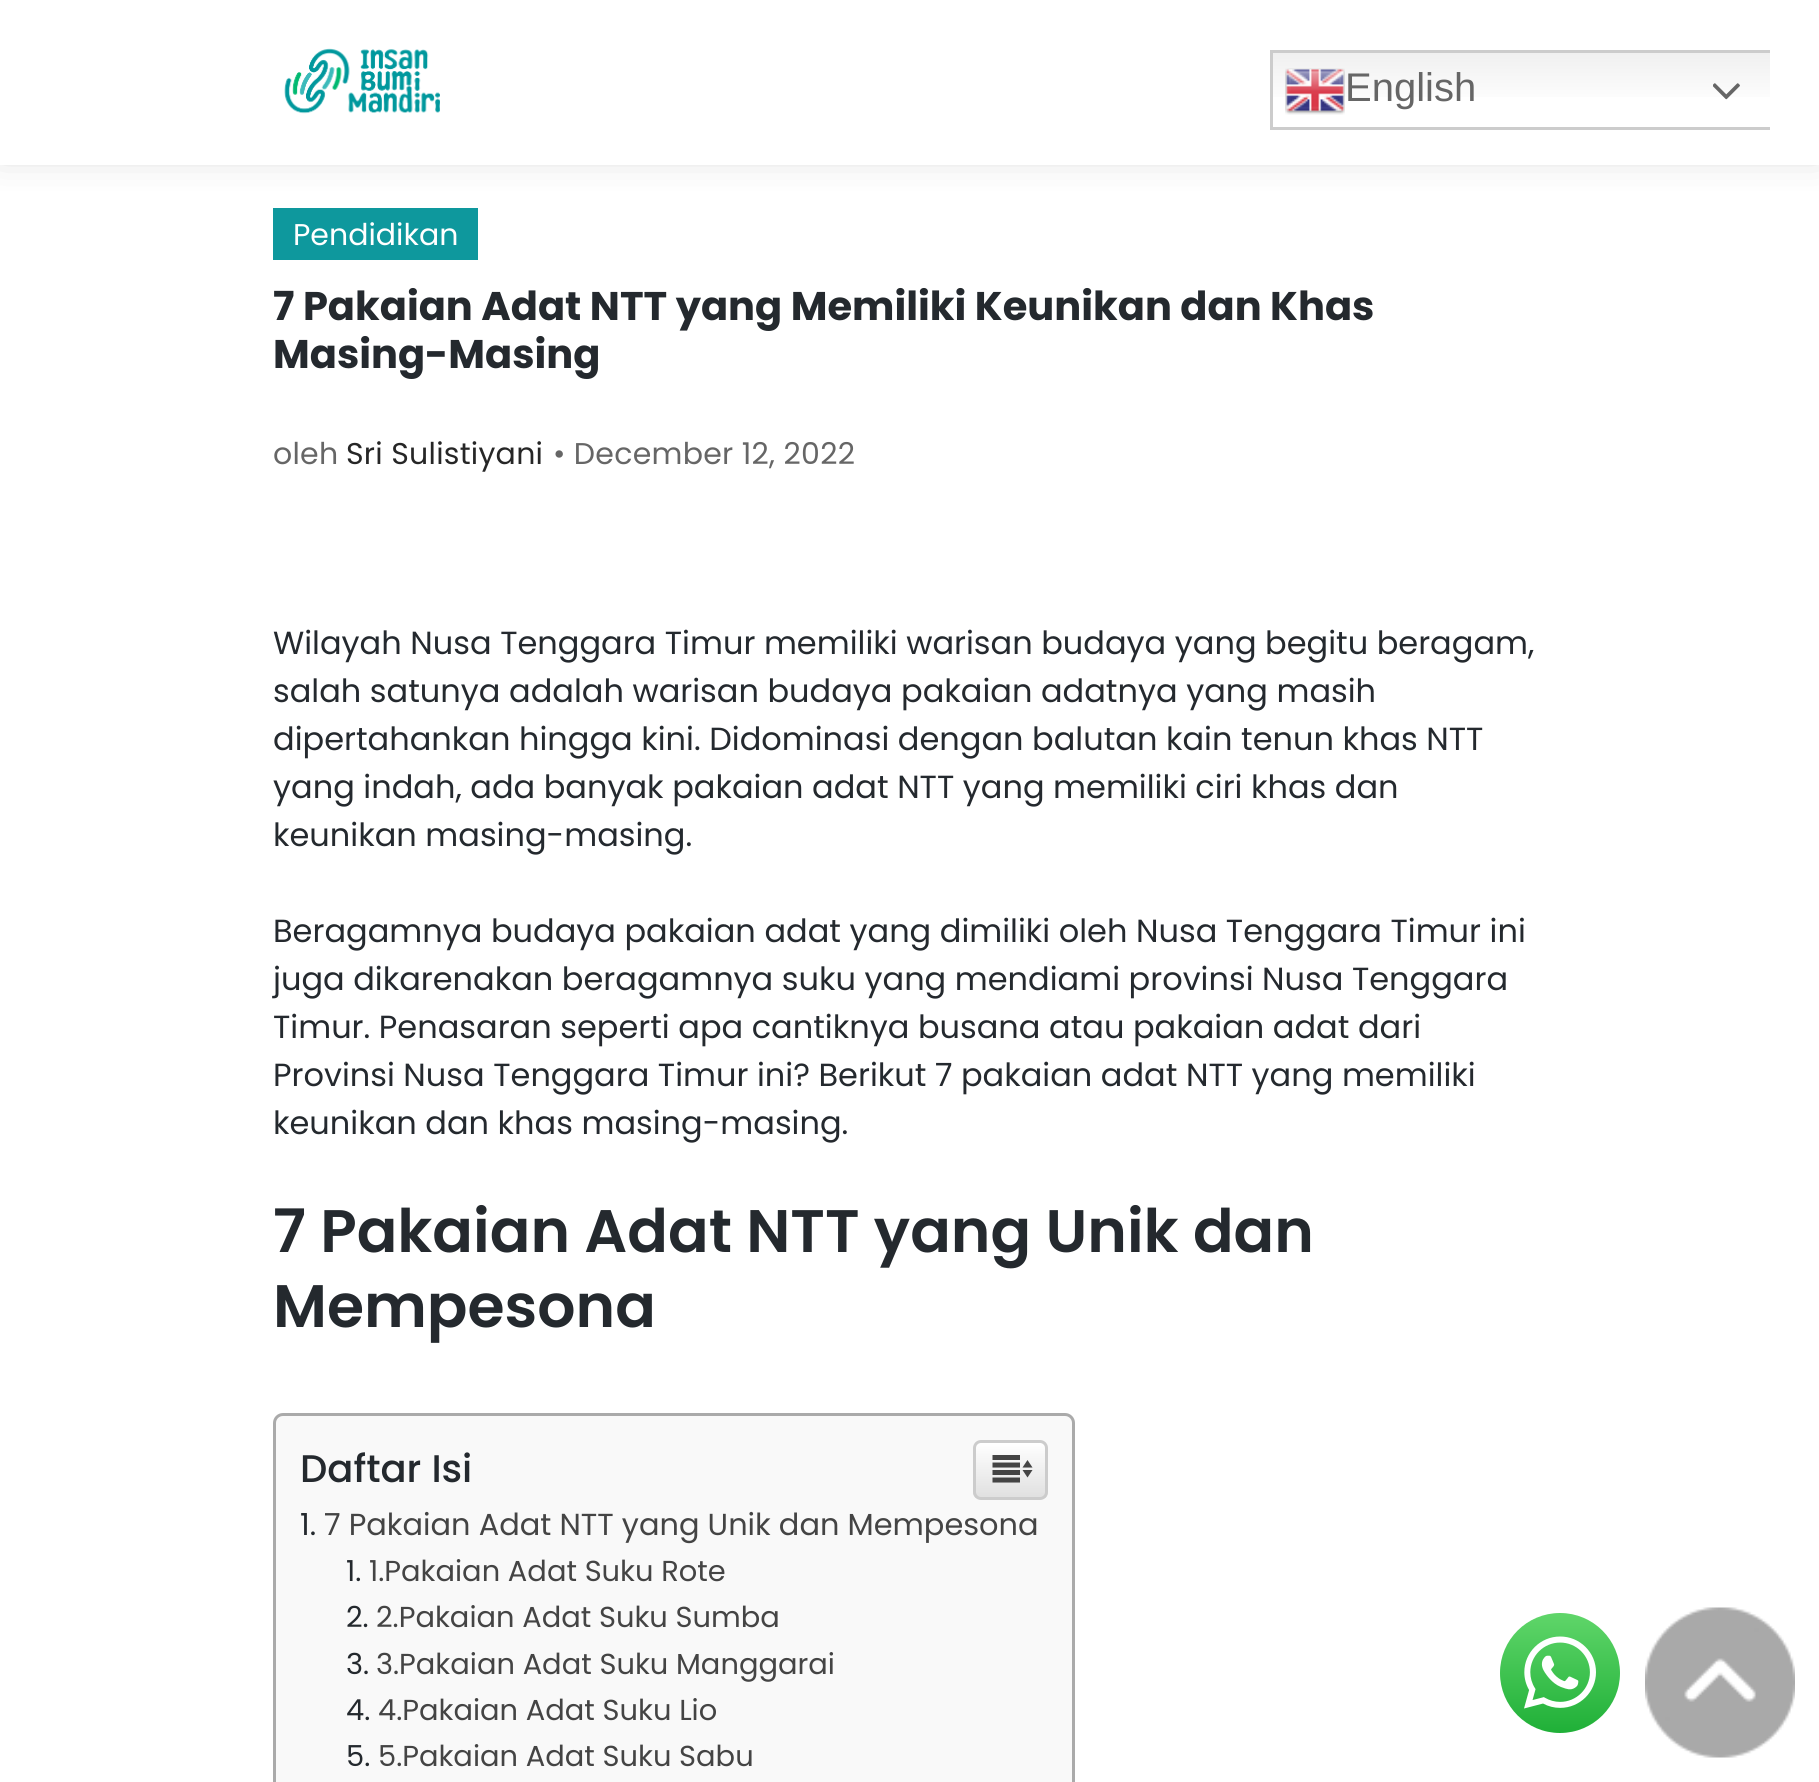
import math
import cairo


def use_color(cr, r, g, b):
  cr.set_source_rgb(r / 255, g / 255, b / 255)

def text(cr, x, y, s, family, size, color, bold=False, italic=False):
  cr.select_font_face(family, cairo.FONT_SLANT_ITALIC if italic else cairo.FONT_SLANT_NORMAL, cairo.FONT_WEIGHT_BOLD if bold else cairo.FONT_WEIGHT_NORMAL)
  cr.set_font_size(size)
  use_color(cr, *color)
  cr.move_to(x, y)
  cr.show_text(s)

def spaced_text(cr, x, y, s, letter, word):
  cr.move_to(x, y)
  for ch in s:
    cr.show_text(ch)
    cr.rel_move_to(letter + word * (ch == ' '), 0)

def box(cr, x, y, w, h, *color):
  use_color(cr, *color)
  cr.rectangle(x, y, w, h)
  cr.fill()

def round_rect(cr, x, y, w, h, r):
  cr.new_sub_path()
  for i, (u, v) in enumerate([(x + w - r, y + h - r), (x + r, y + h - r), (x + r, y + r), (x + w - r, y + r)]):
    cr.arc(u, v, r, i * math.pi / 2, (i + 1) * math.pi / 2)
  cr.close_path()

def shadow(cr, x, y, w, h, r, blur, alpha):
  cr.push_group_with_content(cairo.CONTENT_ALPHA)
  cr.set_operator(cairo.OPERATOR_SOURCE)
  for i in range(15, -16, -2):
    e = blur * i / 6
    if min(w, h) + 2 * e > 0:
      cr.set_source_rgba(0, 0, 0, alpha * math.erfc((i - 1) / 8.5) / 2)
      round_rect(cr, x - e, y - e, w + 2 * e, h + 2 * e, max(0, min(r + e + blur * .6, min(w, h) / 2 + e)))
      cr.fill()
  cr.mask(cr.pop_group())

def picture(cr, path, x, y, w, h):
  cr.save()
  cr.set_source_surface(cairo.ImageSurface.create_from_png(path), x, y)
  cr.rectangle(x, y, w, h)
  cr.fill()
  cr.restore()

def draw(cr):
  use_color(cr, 255, 255, 255)
  cr.paint()
  box(cr, 273, 208, 205, 52, 14, 152, 157)
  cr.save()
  cr.rectangle(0, 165, 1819, 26)
  cr.clip()
  use_color(cr, 196, 196, 196)
  shadow(cr, 0, -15, 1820, 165, 0, 20, 1)
  cr.restore()
  gradient = cairo.LinearGradient(1520, 50, 1520, 130)
  gradient.add_color_stop_rgba(0, 0.937, 0.937, 0.937, 1)
  gradient.add_color_stop_rgba(0.7, 1, 1, 1, 1)
  cr.set_source(gradient)
  cr.rectangle(1273, 53, 497, 44)
  cr.fill()
  cr.save()
  cr.rectangle(1270, 50, 500, 80)
  cr.clip()
  cr.rectangle(1271.5, 51.5, 527, 77)
  use_color(cr, 204, 204, 204)
  cr.set_line_width(3)
  cr.stroke()
  cr.restore()
  picture(cr, "img_01.png", 1285, 68, 60, 47)
  picture(cr, "img_02.png", 1713, 83, 27, 17)
  picture(cr, "img_03.png", 284, 48, 156, 66)
  use_color(cr, 249, 249, 249)
  round_rect(cr, 274.5, 1414.5, 799, 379, 8.5)
  cr.fill_preserve()
  use_color(cr, 170, 170, 170)
  cr.set_line_width(3)
  cr.stroke()
  cr.save()
  round_rect(cr, 973, 1440, 75, 60, 8)
  cr.clip()
  gradient = cairo.LinearGradient(1010, 1443, 1010, 1498)
  gradient.add_color_stop_rgba(0, 1, 1, 1, 1)
  gradient.add_color_stop_rgba(1, 0.878, 0.878, 0.878, 1)
  cr.set_source(gradient)
  cr.rectangle(973, 1443, 75, 55)
  cr.fill()
  cr.restore()
  round_rect(cr, 974.5, 1441.5, 72, 57, 6.5)
  use_color(cr, 204, 204, 204)
  cr.stroke()
  picture(cr, "img_04.png", 992, 1455, 41, 28)
  picture(cr, "img_05.png", 1500, 1613, 120, 120)
  picture(cr, "img_06.png", 1645, 1607, 150, 151)
  text(cr, 1345, 101, "English", "Liberation Sans", 40, (102, 102, 102))
  text(cr, 293, 245, "Pendidikan", "Poppins", 30, (255, 255, 255))
  text(cr, 273, 320, "7 Pakaian Adat NTT yang Memiliki Keunikan dan Khas", "Poppins", 40, (36, 41, 46), bold=True)
  text(cr, 273, 368, "Masing-Masing", "Poppins", 40, (36, 41, 46), bold=True)
  cr.select_font_face("Poppins")
  cr.set_font_size(30)
  use_color(cr, 102, 102, 102)
  spaced_text(cr, 273, 464, "oleh", 0.25, 0)
  use_color(cr, 38, 38, 38)
  spaced_text(cr, 346, 464, "Sri Sulistiyani", 0.25, 0)
  use_color(cr, 102, 102, 102)
  spaced_text(cr, 553, 464, "• December 12, 2022", 0.25, 0)
  text(cr, 273, 654, "Wilayah Nusa Tenggara Timur memiliki warisan budaya yang begitu beragam,", "Poppins", 32, (36, 41, 46))
  text(cr, 273, 702, "salah satunya adalah warisan budaya pakaian adatnya yang masih", "Poppins", 32, (36, 41, 46))
  text(cr, 273, 750, "dipertahankan hingga kini. Didominasi dengan balutan kain tenun khas NTT", "Poppins", 32, (36, 41, 46))
  text(cr, 273, 798, "yang indah, ada banyak pakaian adat NTT yang memiliki ciri khas dan", "Poppins", 32, (36, 41, 46))
  text(cr, 273, 846, "keunikan masing-masing.", "Poppins", 32, (36, 41, 46))
  text(cr, 273, 942, "Beragamnya budaya pakaian adat yang dimiliki oleh Nusa Tenggara Timur ini", "Poppins", 32, (36, 41, 46))
  text(cr, 273, 990, "juga dikarenakan beragamnya suku yang mendiami provinsi Nusa Tenggara", "Poppins", 32, (36, 41, 46))
  text(cr, 273, 1038, "Timur. Penasaran seperti apa cantiknya busana atau pakaian adat dari", "Poppins", 32, (36, 41, 46))
  text(cr, 273, 1086, "Provinsi Nusa Tenggara Timur ini? Berikut 7 pakaian adat NTT yang memiliki", "Poppins", 32, (36, 41, 46))
  text(cr, 273, 1134, "keunikan dan khas masing-masing.", "Poppins", 32, (36, 41, 46))
  text(cr, 273, 1252, "7 Pakaian Adat NTT yang Unik dan", "Poppins SemiBold", 60, (36, 41, 46))
  text(cr, 273, 1327, "Mempesona", "Poppins SemiBold", 60, (36, 41, 46))
  text(cr, 300, 1482, "Daftar Isi", "Poppins Medium", 38.5, (36, 41, 46))
  text(cr, 300, 1535, "1.", "Poppins", 30.4, (36, 41, 46))
  text(cr, 324, 1535, "7 Pakaian Adat NTT yang Unik dan Mempesona", "Poppins", 30.4, (68, 68, 68))
  text(cr, 346, 1581, "1.", "Poppins", 28.9, (36, 41, 46))
  text(cr, 369, 1581, "1.Pakaian Adat Suku Rote", "Poppins", 28.9, (68, 68, 68))
  text(cr, 346, 1627, "2.", "Poppins", 28.9, (36, 41, 46))
  text(cr, 376, 1627, "2.Pakaian Adat Suku Sumba", "Poppins", 28.9, (68, 68, 68))
  text(cr, 346, 1674, "3.", "Poppins", 28.9, (36, 41, 46))
  text(cr, 376, 1674, "3.Pakaian Adat Suku Manggarai", "Poppins", 28.9, (68, 68, 68))
  text(cr, 346, 1720, "4.", "Poppins", 28.9, (36, 41, 46))
  text(cr, 378, 1720, "4.Pakaian Adat Suku Lio", "Poppins", 28.9, (68, 68, 68))
  text(cr, 346, 1766, "5.", "Poppins", 28.9, (36, 41, 46))
  text(cr, 378, 1766, "5.Pakaian Adat Suku Sabu", "Poppins", 28.9, (68, 68, 68))


surface = cairo.ImageSurface(cairo.FORMAT_RGB24, 1819, 1782)
cr = cairo.Context(surface)
options = cairo.FontOptions()
options.set_hint_metrics(cairo.HINT_METRICS_OFF)
options.set_hint_style(cairo.HINT_STYLE_NONE)
cr.set_font_options(options)
cr.set_miter_limit(4)
draw(cr)
surface.write_to_png("out.png")
